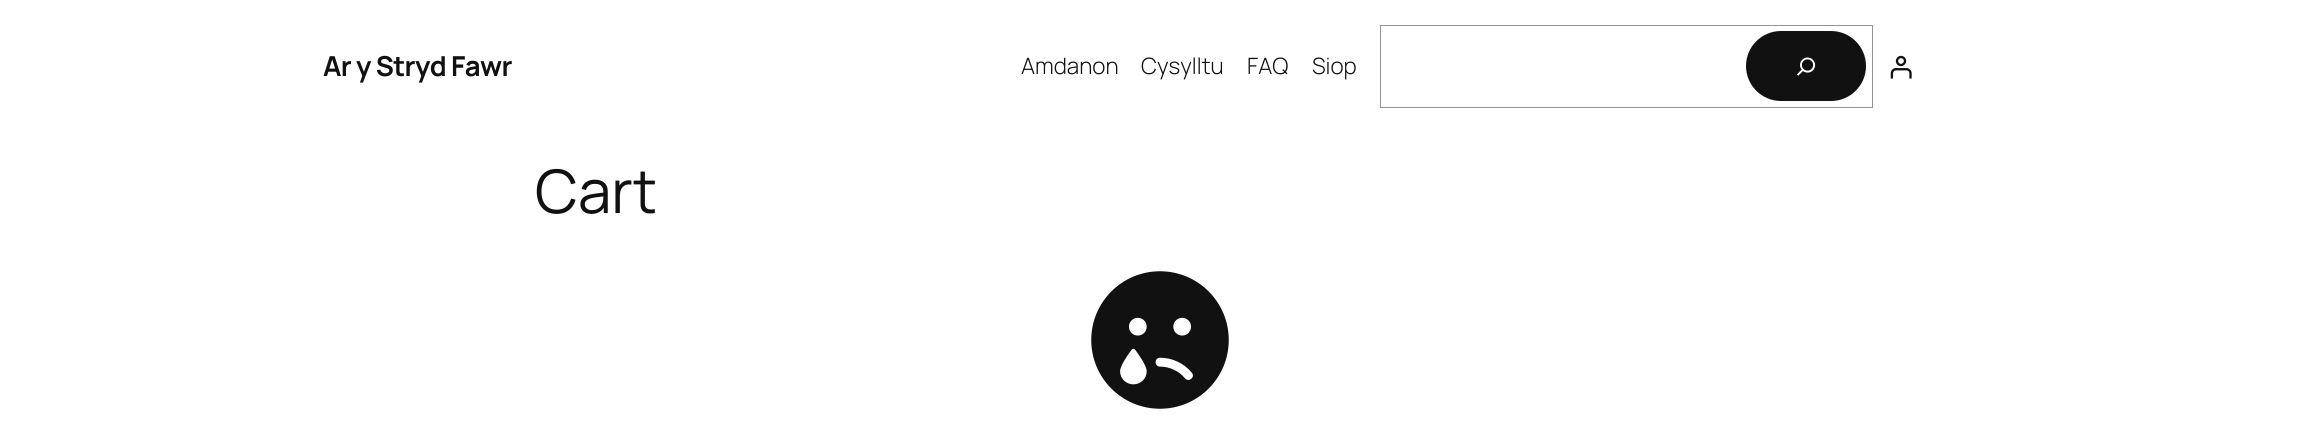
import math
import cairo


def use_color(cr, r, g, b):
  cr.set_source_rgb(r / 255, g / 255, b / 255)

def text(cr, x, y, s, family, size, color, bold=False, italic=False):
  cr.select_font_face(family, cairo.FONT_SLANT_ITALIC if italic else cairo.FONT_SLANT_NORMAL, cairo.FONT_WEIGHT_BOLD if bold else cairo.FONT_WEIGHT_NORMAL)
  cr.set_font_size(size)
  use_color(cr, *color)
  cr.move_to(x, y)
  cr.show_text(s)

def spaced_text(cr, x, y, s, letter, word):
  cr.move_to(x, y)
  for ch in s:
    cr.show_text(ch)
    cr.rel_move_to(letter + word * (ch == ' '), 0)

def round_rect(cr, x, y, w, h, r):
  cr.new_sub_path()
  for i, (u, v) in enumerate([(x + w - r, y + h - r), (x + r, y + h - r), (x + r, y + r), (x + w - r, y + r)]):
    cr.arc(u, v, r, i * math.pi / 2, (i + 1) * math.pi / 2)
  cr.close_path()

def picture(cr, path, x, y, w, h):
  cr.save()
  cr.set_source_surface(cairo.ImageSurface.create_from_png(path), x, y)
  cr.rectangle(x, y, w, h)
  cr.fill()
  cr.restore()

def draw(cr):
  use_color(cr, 255, 255, 255)
  cr.paint()
  cr.rectangle(1380.5, 25.5, 492, 82)
  use_color(cr, 148, 148, 148)
  cr.set_line_width(1)
  cr.stroke()
  use_color(cr, 17, 17, 17)
  round_rect(cr, 1746, 31, 120, 70, 35)
  cr.fill()
  picture(cr, "img_01.png", 1797, 57, 19, 19)
  picture(cr, "img_02.png", 1890, 55, 22, 24)
  picture(cr, "img_03.png", 1091, 271, 138, 138)
  cr.select_font_face("Manrope", cairo.FONT_SLANT_NORMAL, cairo.FONT_WEIGHT_BOLD)
  cr.set_font_size(27.5)
  spaced_text(cr, 323, 76, "Ar y Stryd Fawr", -0.6, 0)
  text(cr, 1021, 74, "Amdanon", "Manrope Light", 22.5, (17, 17, 17))
  text(cr, 1141, 74, "Cysylltu", "Manrope Light", 22.5, (17, 17, 17))
  text(cr, 1247, 74, "FAQ", "Manrope Light", 22.5, (17, 17, 17))
  text(cr, 1312, 74, "Siop", "Manrope Light", 22.5, (17, 17, 17))
  text(cr, 535, 213, "Cart", "Manrope", 60, (17, 17, 17))


surface = cairo.ImageSurface(cairo.FORMAT_RGB24, 2319, 422)
cr = cairo.Context(surface)
options = cairo.FontOptions()
options.set_hint_metrics(cairo.HINT_METRICS_OFF)
options.set_hint_style(cairo.HINT_STYLE_NONE)
cr.set_font_options(options)
cr.set_miter_limit(4)
draw(cr)
surface.write_to_png("out.png")
